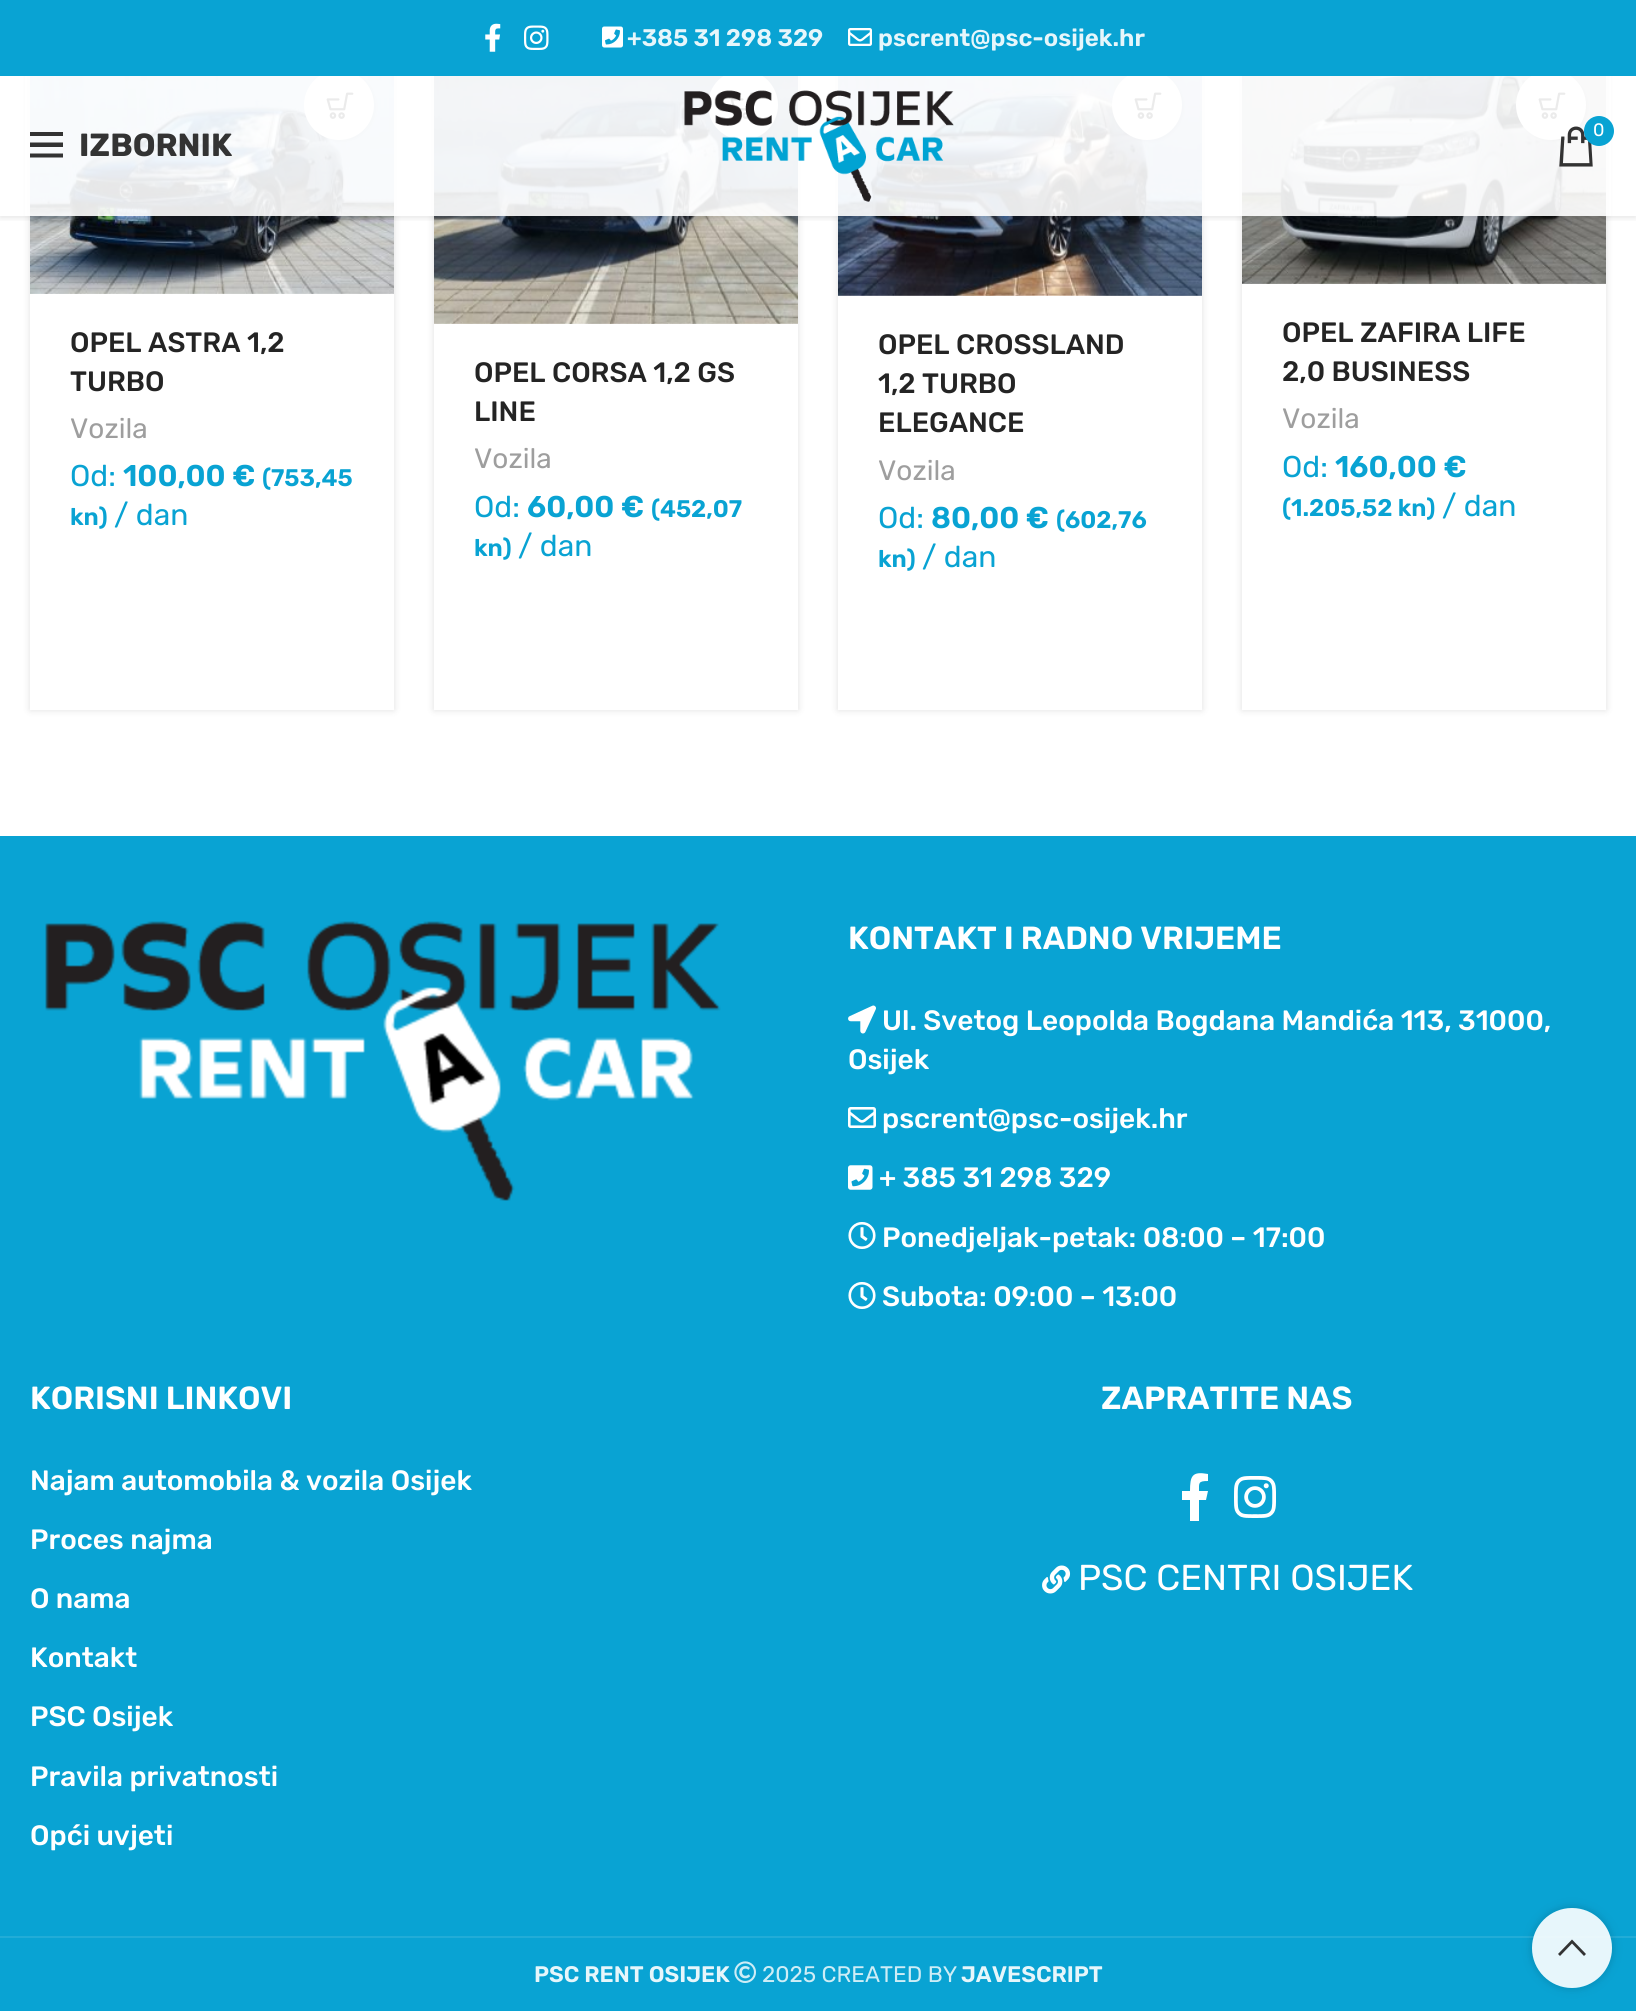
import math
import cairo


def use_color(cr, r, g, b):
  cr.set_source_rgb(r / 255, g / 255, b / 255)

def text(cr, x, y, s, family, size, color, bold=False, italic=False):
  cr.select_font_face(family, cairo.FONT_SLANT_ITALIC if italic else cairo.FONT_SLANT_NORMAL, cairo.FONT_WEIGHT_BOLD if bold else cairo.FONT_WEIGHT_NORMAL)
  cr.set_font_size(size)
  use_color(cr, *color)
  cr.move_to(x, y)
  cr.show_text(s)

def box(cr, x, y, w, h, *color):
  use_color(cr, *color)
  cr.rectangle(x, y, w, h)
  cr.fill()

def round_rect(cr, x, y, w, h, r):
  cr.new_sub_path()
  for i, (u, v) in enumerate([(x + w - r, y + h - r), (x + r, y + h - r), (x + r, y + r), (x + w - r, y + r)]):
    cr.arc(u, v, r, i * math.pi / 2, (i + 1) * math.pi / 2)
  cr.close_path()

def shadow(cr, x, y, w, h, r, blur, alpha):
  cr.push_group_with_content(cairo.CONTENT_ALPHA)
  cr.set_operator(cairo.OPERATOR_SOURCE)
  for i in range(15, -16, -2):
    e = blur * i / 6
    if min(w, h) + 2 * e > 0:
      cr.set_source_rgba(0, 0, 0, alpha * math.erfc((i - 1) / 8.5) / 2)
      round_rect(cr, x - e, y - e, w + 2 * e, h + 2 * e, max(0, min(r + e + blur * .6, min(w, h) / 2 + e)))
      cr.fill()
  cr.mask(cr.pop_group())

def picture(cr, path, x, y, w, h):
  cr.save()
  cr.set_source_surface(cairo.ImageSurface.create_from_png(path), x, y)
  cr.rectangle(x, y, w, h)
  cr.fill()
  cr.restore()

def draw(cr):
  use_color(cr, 255, 255, 255)
  cr.paint()
  cr.save()
  cr.set_fill_rule(cairo.FILL_RULE_EVEN_ODD)
  cr.new_path()
  cr.move_to(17, 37)
  cr.line_to(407, 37)
  cr.line_to(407, 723)
  cr.line_to(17, 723)
  cr.close_path()
  cr.move_to(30, 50)
  cr.line_to(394, 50)
  cr.line_to(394, 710)
  cr.line_to(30, 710)
  cr.close_path()
  cr.clip()
  use_color(cr, 0, 0, 0)
  shadow(cr, 30, 50, 364, 660, 0, 4, 0.12)
  cr.restore()
  picture(cr, "img_08.png", 30, 76, 364, 218)
  use_color(cr, 0, 0, 0)
  shadow(cr, 306, 72, 70, 70, 35, 1, 0.1)
  use_color(cr, 255, 255, 255)
  cr.arc(339, 105, 35, 0, 2 * math.pi)
  cr.fill()
  picture(cr, "img_07.png", 326, 92, 28, 27)
  cr.save()
  cr.set_fill_rule(cairo.FILL_RULE_EVEN_ODD)
  cr.new_path()
  cr.move_to(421, 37)
  cr.line_to(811, 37)
  cr.line_to(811, 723)
  cr.line_to(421, 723)
  cr.close_path()
  cr.move_to(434, 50)
  cr.line_to(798, 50)
  cr.line_to(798, 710)
  cr.line_to(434, 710)
  cr.close_path()
  cr.clip()
  use_color(cr, 0, 0, 0)
  shadow(cr, 434, 50, 364, 660, 0, 4, 0.12)
  cr.restore()
  picture(cr, "img_10.png", 434, 76, 364, 248)
  use_color(cr, 0, 0, 0)
  shadow(cr, 710, 72, 70, 70, 35, 1, 0.1)
  use_color(cr, 255, 255, 255)
  cr.arc(743, 105, 35, 0, 2 * math.pi)
  cr.fill()
  picture(cr, "img_09.png", 730, 92, 25, 27)
  cr.save()
  cr.set_fill_rule(cairo.FILL_RULE_EVEN_ODD)
  cr.new_path()
  cr.move_to(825, 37)
  cr.line_to(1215, 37)
  cr.line_to(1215, 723)
  cr.line_to(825, 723)
  cr.close_path()
  cr.move_to(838, 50)
  cr.line_to(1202, 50)
  cr.line_to(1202, 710)
  cr.line_to(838, 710)
  cr.close_path()
  cr.clip()
  use_color(cr, 0, 0, 0)
  shadow(cr, 838, 50, 364, 660, 0, 4, 0.12)
  cr.restore()
  picture(cr, "img_11.png", 838, 76, 364, 220)
  use_color(cr, 0, 0, 0)
  shadow(cr, 1114, 72, 70, 70, 35, 1, 0.1)
  use_color(cr, 255, 255, 255)
  cr.arc(1147, 105, 35, 0, 2 * math.pi)
  cr.fill()
  picture(cr, "img_07.png", 1134, 92, 28, 27)
  cr.save()
  cr.set_fill_rule(cairo.FILL_RULE_EVEN_ODD)
  cr.new_path()
  cr.move_to(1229, 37)
  cr.line_to(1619, 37)
  cr.line_to(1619, 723)
  cr.line_to(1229, 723)
  cr.close_path()
  cr.move_to(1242, 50)
  cr.line_to(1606, 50)
  cr.line_to(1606, 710)
  cr.line_to(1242, 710)
  cr.close_path()
  cr.clip()
  use_color(cr, 0, 0, 0)
  shadow(cr, 1242, 50, 364, 660, 0, 4, 0.12)
  cr.restore()
  picture(cr, "img_12.png", 1242, 76, 364, 208)
  use_color(cr, 0, 0, 0)
  shadow(cr, 1518, 72, 70, 70, 35, 1, 0.1)
  use_color(cr, 255, 255, 255)
  cr.arc(1551, 105, 35, 0, 2 * math.pi)
  cr.fill()
  picture(cr, "img_07.png", 1538, 92, 28, 27)
  cr.save()
  cr.rectangle(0, 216, 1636, 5)
  cr.clip()
  use_color(cr, 0, 0, 0)
  shadow(cr, 0, 2, 1636, 216, 0, 3, 0.1)
  cr.restore()
  box(cr, 0, 0, 1636, 76, 9, 163, 211)
  picture(cr, "img_01.png", 485, 23, 16, 29)
  picture(cr, "img_02.png", 524, 25, 25, 25)
  picture(cr, "img_03.png", 602, 26, 21, 22)
  picture(cr, "img_04.png", 848, 28, 24, 18)
  cr.set_source_rgba(1, 1, 1, 0.9)
  cr.rectangle(25, 76, 1586, 140)
  cr.fill()
  picture(cr, "img_05.png", 684, 90, 270, 112)
  picture(cr, "img_06.png", 1559, 126, 34, 41)
  use_color(cr, 9, 163, 211)
  cr.arc(1599, 131, 15, 0, 2 * math.pi)
  cr.fill()
  use_color(cr, 51, 51, 51)
  cr.new_path()
  cr.move_to(30, 132)
  cr.line_to(63, 132)
  cr.line_to(63, 136)
  cr.line_to(30, 136)
  cr.close_path()
  cr.move_to(30, 142.5)
  cr.line_to(63, 142.5)
  cr.line_to(63, 147)
  cr.line_to(30, 147)
  cr.close_path()
  cr.move_to(30, 153.5)
  cr.line_to(63, 153.5)
  cr.line_to(63, 157.5)
  cr.line_to(30, 157.5)
  cr.close_path()
  cr.fill()
  box(cr, 0, 836, 1636, 1175, 9, 163, 211)
  picture(cr, "img_13.png", 45, 921, 676, 280)
  picture(cr, "img_14.png", 848, 1005, 28, 29)
  picture(cr, "img_15.png", 848, 1107, 28, 21)
  picture(cr, "img_16.png", 848, 1165, 25, 25)
  picture(cr, "img_17.png", 848, 1222, 28, 27)
  picture(cr, "img_17.png", 848, 1282, 28, 27)
  use_color(cr, 255, 255, 255)
  cr.new_path()
  cr.move_to(1206, 1500)
  cr.line_to(1208, 1491)
  cr.line_to(1199, 1491)
  cr.curve_to(1199, 1483, 1198, 1481, 1208, 1481)
  cr.line_to(1208, 1474)
  cr.curve_to(1192, 1471, 1190, 1476, 1190, 1491)
  cr.line_to(1182, 1491)
  cr.line_to(1182, 1500)
  cr.line_to(1190, 1500)
  cr.line_to(1190, 1521)
  cr.line_to(1199, 1521)
  cr.line_to(1199, 1500)
  cr.close_path()
  cr.fill()
  picture(cr, "img_18.png", 1234, 1476, 42, 42)
  picture(cr, "img_19.png", 1042, 1565, 29, 29)
  box(cr, 0, 1936, 1636, 2, 34, 172, 215)
  picture(cr, "img_20.png", 734, 1961, 22, 22)
  cr.save()
  cr.set_fill_rule(cairo.FILL_RULE_EVEN_ODD)
  cr.new_path()
  cr.move_to(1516, 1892)
  cr.line_to(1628, 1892)
  cr.line_to(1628, 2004)
  cr.line_to(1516, 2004)
  cr.close_path()
  cr.move_to(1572, 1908)
  cr.curve_to(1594, 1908, 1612, 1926, 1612, 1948)
  cr.curve_to(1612, 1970, 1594, 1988, 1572, 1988)
  cr.curve_to(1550, 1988, 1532, 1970, 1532, 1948)
  cr.curve_to(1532, 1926, 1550, 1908, 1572, 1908)
  cr.close_path()
  cr.clip()
  use_color(cr, 0, 0, 0)
  shadow(cr, 1532, 1908, 80, 80, 40, 5, 0.17)
  cr.restore()
  cr.set_source_rgba(1, 1, 1, 0.9)
  cr.arc(1572, 1948, 40, 0, 2 * math.pi)
  cr.fill()
  use_color(cr, 51, 51, 51)
  cr.new_path()
  cr.move_to(1572, 1939.5)
  cr.line_to(1586, 1954)
  cr.line_to(1584, 1956)
  cr.line_to(1572, 1943.5)
  cr.line_to(1560, 1956)
  cr.line_to(1558, 1954)
  cr.close_path()
  cr.fill()
  text(cr, 627, 46, "+385 31 298 329", "Rubik SemiBold", 24, (230, 246, 251))
  text(cr, 878, 46, "pscrent@psc-osijek.hr", "Rubik SemiBold", 24, (230, 246, 251))
  text(cr, 1593, 136, "0", "Rubik", 18, (255, 255, 255))
  text(cr, 79, 156, "IZBORNIK", "Rubik", 32, (51, 51, 51), bold=True)
  text(cr, 70, 352, "OPEL ASTRA 1,2", "Rubik Medium", 28, (36, 36, 36))
  text(cr, 70, 391, "TURBO", "Rubik Medium", 28, (36, 36, 36))
  text(cr, 70, 438, "Vozila", "Rubik", 28, (158, 158, 158))
  text(cr, 70, 486, "Od:", "Rubik", 30, (9, 163, 211))
  text(cr, 123, 486, "100,00 €", "Rubik SemiBold", 30, (9, 163, 211))
  text(cr, 262, 486, "(753,45", "Rubik SemiBold", 24, (9, 163, 211))
  text(cr, 70, 525, "kn)", "Rubik SemiBold", 24, (9, 163, 211))
  text(cr, 114, 525, "/ dan", "Rubik", 30, (9, 163, 211))
  text(cr, 474, 382, "OPEL CORSA 1,2 GS", "Rubik Medium", 28, (36, 36, 36))
  text(cr, 474, 421, "LINE", "Rubik Medium", 28, (36, 36, 36))
  text(cr, 474, 468, "Vozila", "Rubik", 28, (158, 158, 158))
  text(cr, 474, 517, "Od:", "Rubik", 30, (9, 163, 211))
  text(cr, 527, 517, "60,00 €", "Rubik SemiBold", 30, (9, 163, 211))
  text(cr, 651, 517, "(452,07", "Rubik SemiBold", 24, (9, 163, 211))
  text(cr, 474, 556, "kn)", "Rubik SemiBold", 24, (9, 163, 211))
  text(cr, 518, 556, "/ dan", "Rubik", 30, (9, 163, 211))
  text(cr, 878, 354, "OPEL CROSSLAND", "Rubik Medium", 28, (36, 36, 36))
  text(cr, 878, 393, "1,2 TURBO", "Rubik Medium", 28, (36, 36, 36))
  text(cr, 878, 432, "ELEGANCE", "Rubik Medium", 28, (36, 36, 36))
  text(cr, 878, 480, "Vozila", "Rubik", 28, (158, 158, 158))
  text(cr, 878, 528, "Od:", "Rubik", 30, (9, 163, 211))
  text(cr, 931, 528, "80,00 €", "Rubik SemiBold", 30, (9, 163, 211))
  text(cr, 1056, 528, "(602,76", "Rubik SemiBold", 24, (9, 163, 211))
  text(cr, 878, 567, "kn)", "Rubik SemiBold", 24, (9, 163, 211))
  text(cr, 922, 567, "/ dan", "Rubik", 30, (9, 163, 211))
  text(cr, 1282, 342, "OPEL ZAFIRA LIFE", "Rubik Medium", 28, (36, 36, 36))
  text(cr, 1282, 381, "2,0 BUSINESS", "Rubik Medium", 28, (36, 36, 36))
  text(cr, 1282, 428, "Vozila", "Rubik", 28, (158, 158, 158))
  text(cr, 1282, 477, "Od:", "Rubik", 30, (9, 163, 211))
  text(cr, 1335, 477, "160,00 €", "Rubik SemiBold", 30, (9, 163, 211))
  text(cr, 1282, 516, "(1.205,52 kn)", "Rubik SemiBold", 24, (9, 163, 211))
  text(cr, 1442, 516, "/ dan", "Rubik", 30, (9, 163, 211))
  text(cr, 848, 949, "KONTAKT I RADNO VRIJEME", "Rubik SemiBold", 32, (255, 255, 255))
  text(cr, 882, 1030, "Ul. Svetog Leopolda Bogdana Mandića 113, 31000,", "Rubik Medium", 28, (255, 255, 255))
  text(cr, 848, 1069, "Osijek", "Rubik Medium", 28, (255, 255, 255))
  text(cr, 882, 1128, "pscrent@psc-osijek.hr", "Rubik Medium", 28, (255, 255, 255))
  text(cr, 879, 1187, "+ 385 31 298 329", "Rubik Medium", 28, (255, 255, 255))
  text(cr, 882, 1247, "Ponedjeljak-petak: 08:00 – 17:00", "Rubik Medium", 28, (255, 255, 255))
  text(cr, 882, 1306, "Subota: 09:00 – 13:00", "Rubik Medium", 28, (255, 255, 255))
  text(cr, 30, 1409, "KORISNI LINKOVI", "Rubik SemiBold", 32, (255, 255, 255))
  text(cr, 30, 1490, "Najam automobila & vozila Osijek", "Rubik Medium", 28, (255, 255, 255))
  text(cr, 30, 1549, "Proces najma", "Rubik Medium", 28, (255, 255, 255))
  text(cr, 30, 1608, "O nama", "Rubik Medium", 28, (255, 255, 255))
  text(cr, 30, 1667, "Kontakt", "Rubik Medium", 28, (255, 255, 255))
  text(cr, 30, 1726, "PSC Osijek", "Rubik Medium", 28, (255, 255, 255))
  text(cr, 30, 1786, "Pravila privatnosti", "Rubik Medium", 28, (255, 255, 255))
  text(cr, 30, 1845, "Opći uvjeti", "Rubik Medium", 28, (255, 255, 255))
  text(cr, 1101, 1409, "ZAPRATITE NAS", "Rubik SemiBold", 32, (255, 255, 255))
  text(cr, 1078, 1590, "PSC CENTRI OSIJEK", "Rubik", 36, (255, 255, 255))
  text(cr, 534, 1982, "PSC RENT OSIJEK", "Rubik SemiBold", 22.5, (230, 246, 251))
  text(cr, 762, 1982, "2025 CREATED BY", "Rubik", 22.5, (206, 237, 246))
  text(cr, 961, 1982, "JAVESCRIPT", "Rubik SemiBold", 22.5, (230, 246, 251))


surface = cairo.ImageSurface(cairo.FORMAT_RGB24, 1636, 2011)
cr = cairo.Context(surface)
options = cairo.FontOptions()
options.set_hint_metrics(cairo.HINT_METRICS_OFF)
options.set_hint_style(cairo.HINT_STYLE_NONE)
cr.set_font_options(options)
cr.set_miter_limit(4)
draw(cr)
surface.write_to_png("out.png")
